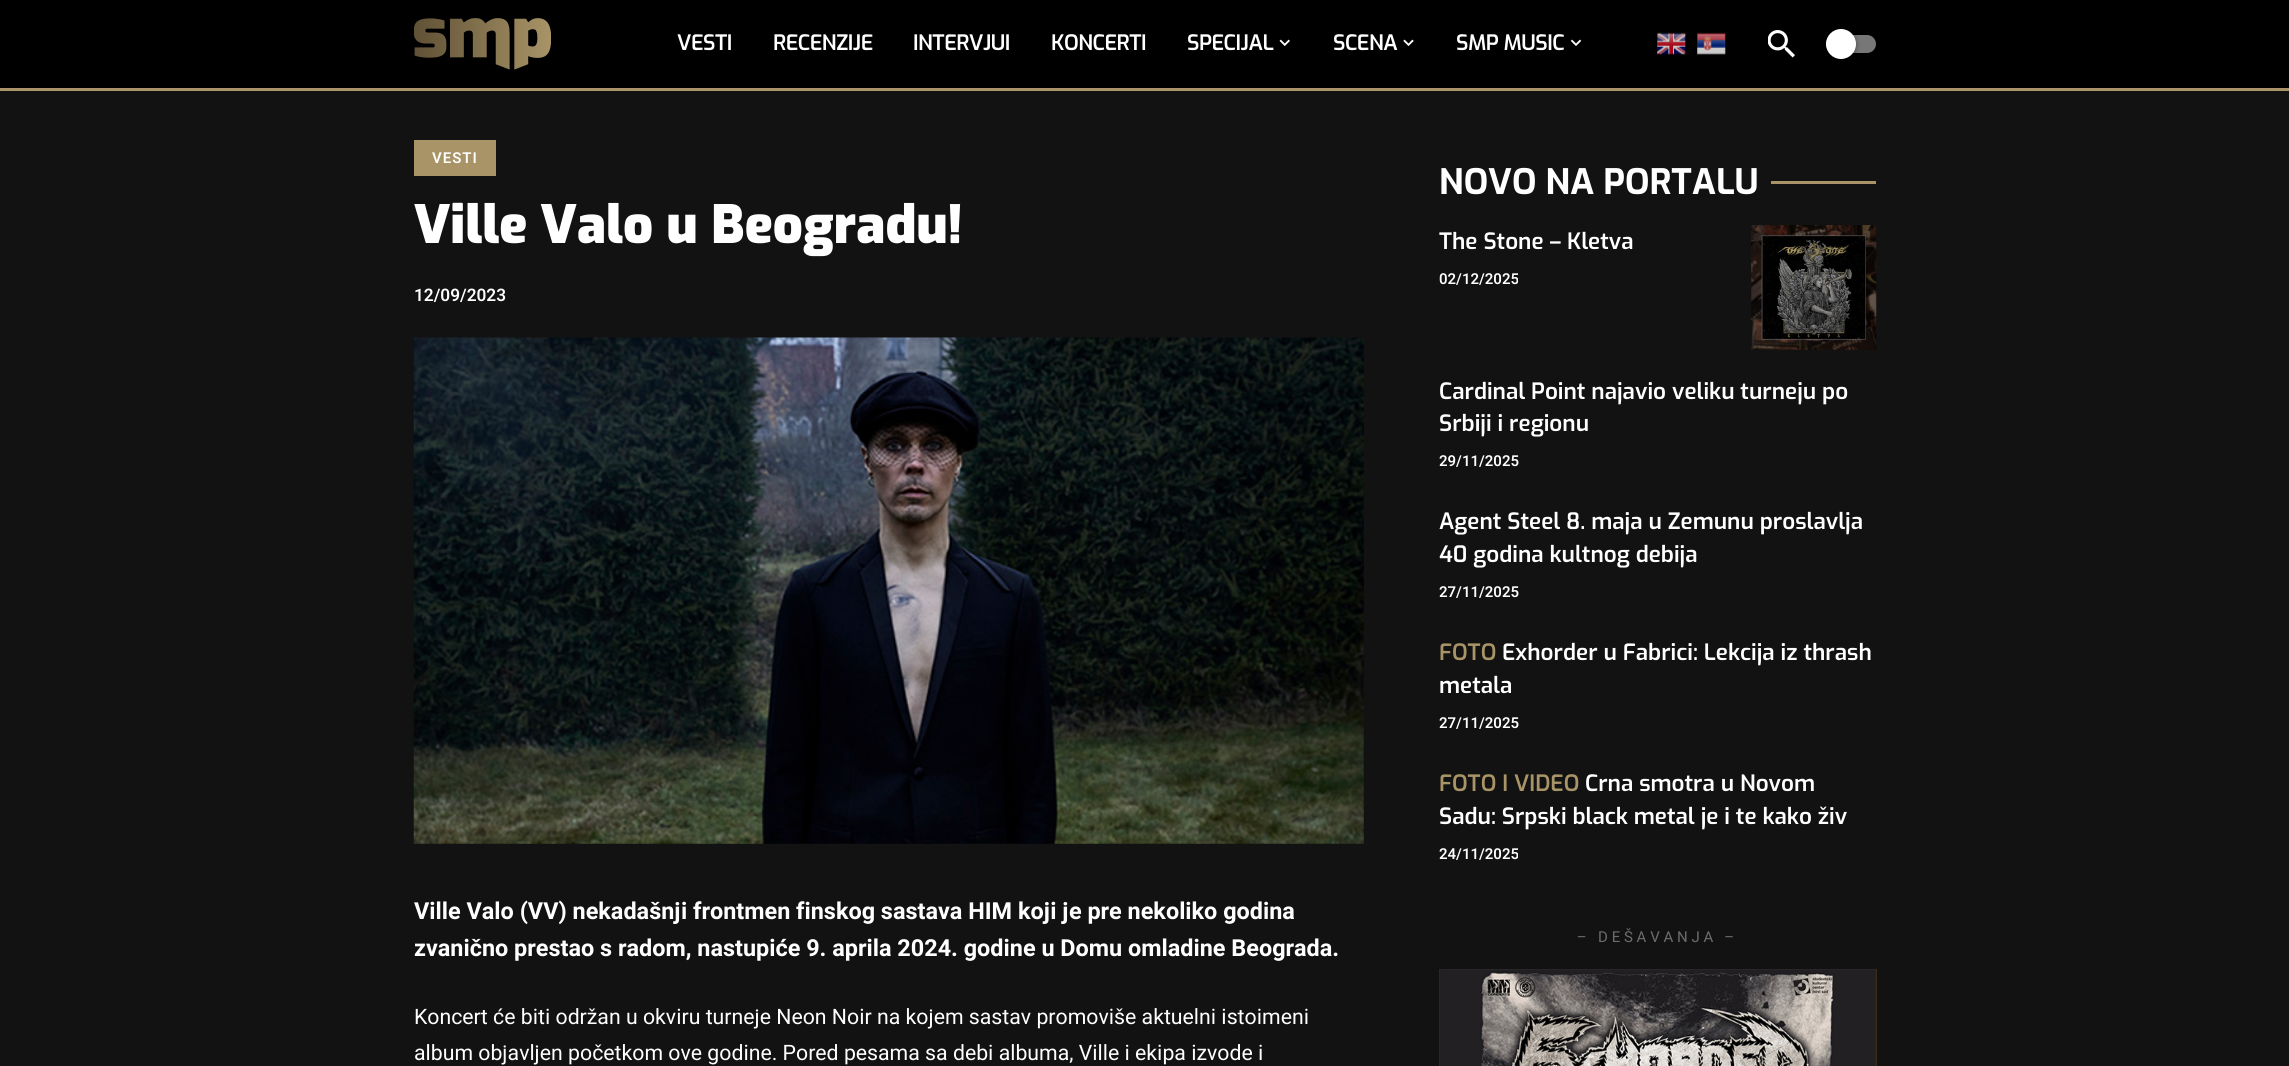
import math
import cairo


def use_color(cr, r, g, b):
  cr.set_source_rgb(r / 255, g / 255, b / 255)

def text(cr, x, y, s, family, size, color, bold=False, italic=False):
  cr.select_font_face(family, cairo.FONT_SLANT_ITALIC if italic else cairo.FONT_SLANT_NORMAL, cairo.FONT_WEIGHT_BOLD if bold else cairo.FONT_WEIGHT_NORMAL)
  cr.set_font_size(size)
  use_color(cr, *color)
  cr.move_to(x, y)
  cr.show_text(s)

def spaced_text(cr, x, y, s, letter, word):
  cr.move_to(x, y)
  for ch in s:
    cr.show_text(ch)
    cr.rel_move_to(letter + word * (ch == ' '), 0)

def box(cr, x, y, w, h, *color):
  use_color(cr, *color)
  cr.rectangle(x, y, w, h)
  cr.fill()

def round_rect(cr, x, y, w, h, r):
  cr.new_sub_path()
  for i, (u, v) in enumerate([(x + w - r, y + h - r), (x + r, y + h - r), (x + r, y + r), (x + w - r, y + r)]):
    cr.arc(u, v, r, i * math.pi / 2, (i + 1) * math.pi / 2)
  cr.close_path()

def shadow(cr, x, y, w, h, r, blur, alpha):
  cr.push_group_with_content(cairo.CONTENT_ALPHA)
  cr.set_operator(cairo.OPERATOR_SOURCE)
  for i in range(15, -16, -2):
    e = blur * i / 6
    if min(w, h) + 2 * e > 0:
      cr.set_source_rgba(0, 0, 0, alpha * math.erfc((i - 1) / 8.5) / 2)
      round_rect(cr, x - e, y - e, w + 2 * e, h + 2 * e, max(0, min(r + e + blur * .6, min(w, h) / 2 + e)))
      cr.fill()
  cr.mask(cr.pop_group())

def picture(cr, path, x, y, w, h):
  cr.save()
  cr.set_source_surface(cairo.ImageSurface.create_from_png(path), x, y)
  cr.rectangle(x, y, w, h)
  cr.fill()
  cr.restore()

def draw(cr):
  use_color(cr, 18, 18, 18)
  cr.paint()
  box(cr, 0, 0, 2289, 88, 0, 0, 0)
  box(cr, 0, 88, 2289, 3, 169, 148, 103)
  picture(cr, "img_01.png", 414, 18, 137, 52)
  picture(cr, "img_02.png", 1279, 39, 11, 7)
  picture(cr, "img_03.png", 1403, 39, 11, 7)
  picture(cr, "img_04.png", 1570, 39, 12, 7)
  picture(cr, "img_05.png", 1657, 32, 29, 23)
  picture(cr, "img_06.png", 1697, 32, 29, 23)
  picture(cr, "img_07.png", 1768, 30, 27, 28)
  use_color(cr, 119, 119, 119)
  round_rect(cr, 1826, 35, 50, 18, 9)
  cr.fill()
  use_color(cr, 0, 0, 0)
  shadow(cr, 1826, 30, 30, 30, 15, 2.5, 0.4)
  use_color(cr, 255, 255, 255)
  cr.arc(1841, 44, 15, 0, 2 * math.pi)
  cr.fill()
  box(cr, 414, 140, 82, 36, 169, 148, 103)
  picture(cr, "img_08.png", 413, 337, 951, 507)
  box(cr, 1771, 181, 105, 3, 169, 148, 103)
  picture(cr, "img_09.png", 1751, 225, 126, 125)
  picture(cr, "img_10.png", 1439, 969, 437, 97)
  box(cr, 1876, 969, 1, 97, 57, 43, 21)
  cr.select_font_face("Exo SemiBold")
  cr.set_font_size(21.25)
  use_color(cr, 255, 255, 255)
  spaced_text(cr, 677, 50, "VESTI", -0.5, 0)
  spaced_text(cr, 773, 50, "RECENZIJE", -0.5, 0)
  spaced_text(cr, 913, 50, "INTERVJUI", -0.5, 0)
  spaced_text(cr, 1051, 50, "KONCERTI", -0.5, 0)
  spaced_text(cr, 1187, 50, "SPECIJAL", -0.5, 0)
  spaced_text(cr, 1333, 50, "SCENA", -0.5, 0)
  spaced_text(cr, 1456, 50, "SMP MUSIC", -0.5, 0)
  cr.select_font_face("Heebo SemiBold")
  cr.set_font_size(15)
  spaced_text(cr, 432, 163, "VESTI", 1, 0)
  text(cr, 414, 243, "Ville Valo u Beogradu!", "Exo Black", 52.5, (255, 255, 255))
  text(cr, 414, 301, "12/09/2023", "Heebo SemiBold", 17.25, (255, 255, 255))
  text(cr, 414, 919, "Ville Valo (VV) nekadašnji frontmen finskog sastava HIM koji je pre nekoliko godina", "Heebo", 23.4, (255, 255, 255), bold=True)
  text(cr, 414, 956, "zvanično prestao s radom, nastupiće 9. aprila 2024. godine u Domu omladine Beograda.", "Heebo", 23.4, (255, 255, 255), bold=True)
  text(cr, 414, 1024, "Koncert će biti održan u okviru turneje Neon Noir na kojem sastav promoviše aktuelni istoimeni", "Heebo", 21.25, (255, 255, 255))
  text(cr, 414, 1060, "album objavljen početkom ove godine. Pored pesama sa debi albuma, Ville i ekipa izvode i", "Heebo", 21.25, (255, 255, 255))
  text(cr, 1439, 194, "NOVO NA PORTALU", "Exo", 35, (255, 255, 255), bold=True)
  text(cr, 1439, 249, "The Stone – Kletva", "Exo SemiBold", 22.5, (255, 255, 255))
  text(cr, 1439, 284, "02/12/2025", "Heebo SemiBold", 15, (255, 255, 255))
  text(cr, 1439, 399, "Cardinal Point najavio veliku turneju po", "Exo SemiBold", 22.5, (255, 255, 255))
  text(cr, 1439, 431, "Srbiji i regionu", "Exo SemiBold", 22.5, (255, 255, 255))
  text(cr, 1439, 466, "29/11/2025", "Heebo SemiBold", 15, (255, 255, 255))
  text(cr, 1439, 529, "Agent Steel 8. maja u Zemunu proslavlja", "Exo SemiBold", 22.5, (255, 255, 255))
  text(cr, 1439, 562, "40 godina kultnog debija", "Exo SemiBold", 22.5, (255, 255, 255))
  text(cr, 1439, 597, "27/11/2025", "Heebo SemiBold", 15, (255, 255, 255))
  text(cr, 1439, 660, "FOTO", "Exo SemiBold", 22.5, (169, 148, 103))
  text(cr, 1502, 660, "Exhorder u Fabrici: Lekcija iz thrash", "Exo SemiBold", 22.5, (255, 255, 255))
  text(cr, 1439, 693, "metala", "Exo SemiBold", 22.5, (255, 255, 255))
  text(cr, 1439, 728, "27/11/2025", "Heebo SemiBold", 15, (255, 255, 255))
  text(cr, 1439, 791, "FOTO I VIDEO", "Exo SemiBold", 22.5, (169, 148, 103))
  text(cr, 1585, 791, "Crna smotra u Novom", "Exo SemiBold", 22.5, (255, 255, 255))
  text(cr, 1439, 824, "Sadu: Srpski black metal je i te kako živ", "Exo SemiBold", 22.5, (255, 255, 255))
  text(cr, 1439, 859, "24/11/2025", "Heebo SemiBold", 15, (255, 255, 255))
  cr.select_font_face("Heebo")
  use_color(cr, 109, 109, 109)
  spaced_text(cr, 1577, 942, "– DEŠAVANJA –", 3.75, 0)


surface = cairo.ImageSurface(cairo.FORMAT_RGB24, 2289, 1066)
cr = cairo.Context(surface)
options = cairo.FontOptions()
options.set_hint_metrics(cairo.HINT_METRICS_OFF)
options.set_hint_style(cairo.HINT_STYLE_NONE)
cr.set_font_options(options)
cr.set_miter_limit(4)
draw(cr)
surface.write_to_png("out.png")
